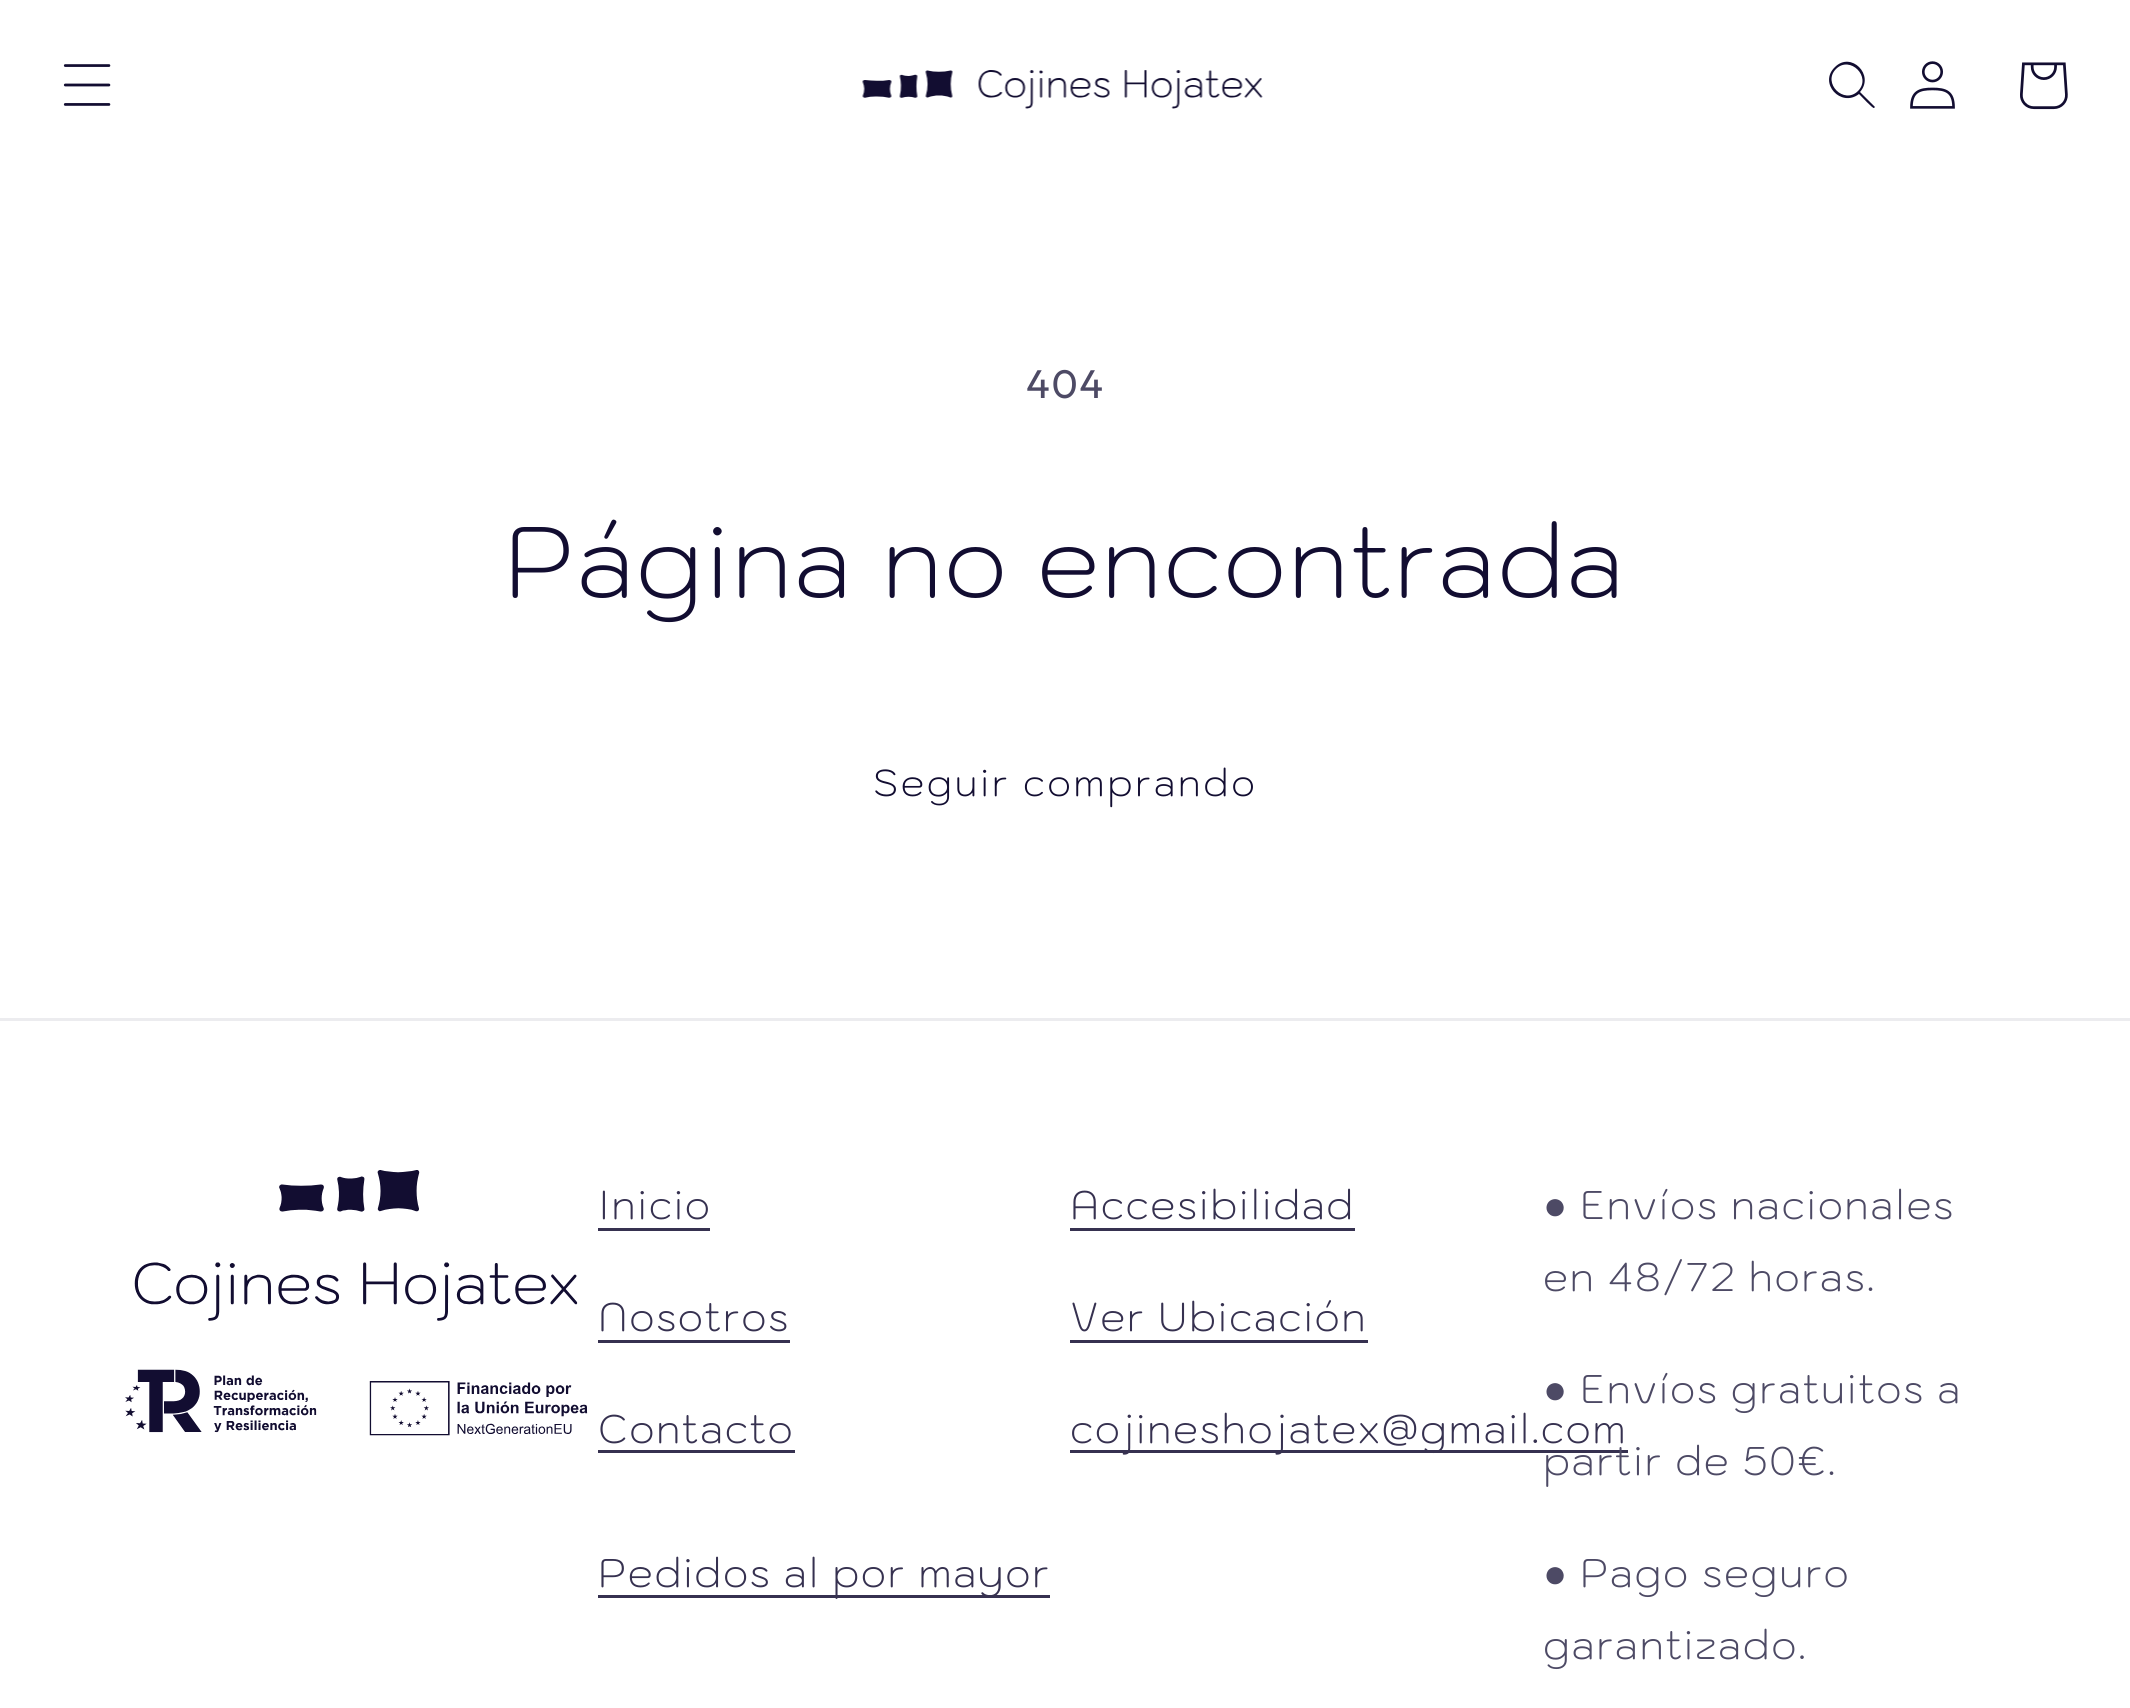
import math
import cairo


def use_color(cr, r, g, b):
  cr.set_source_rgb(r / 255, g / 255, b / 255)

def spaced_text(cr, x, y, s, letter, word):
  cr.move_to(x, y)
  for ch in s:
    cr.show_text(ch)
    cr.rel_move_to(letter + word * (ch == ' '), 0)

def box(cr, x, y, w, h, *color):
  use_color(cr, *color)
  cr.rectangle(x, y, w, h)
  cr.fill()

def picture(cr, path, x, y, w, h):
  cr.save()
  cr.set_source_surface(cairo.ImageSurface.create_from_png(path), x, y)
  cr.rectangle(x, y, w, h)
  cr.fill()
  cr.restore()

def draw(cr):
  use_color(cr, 255, 255, 255)
  cr.paint()
  picture(cr, "img_01.png", 63, 64, 48, 42)
  picture(cr, "img_02.png", 862, 70, 401, 39)
  use_color(cr, 18, 13, 49)
  cr.set_fill_rule(cairo.FILL_RULE_EVEN_ODD)
  cr.new_path()
  cr.move_to(1858, 91)
  cr.curve_to(1844, 105, 1822, 83, 1836, 69)
  cr.curve_to(1850, 55, 1872, 77, 1858, 91)
  cr.close_path()
  cr.move_to(1859, 94)
  cr.curve_to(1841, 108, 1818, 83, 1835, 67)
  cr.curve_to(1851, 51, 1875, 75, 1860, 92)
  cr.line_to(1875, 107)
  cr.line_to(1874, 108)
  cr.curve_to(1873, 109, 1861, 96, 1859, 94)
  cr.close_path()
  cr.fill()
  picture(cr, "img_03.png", 1910, 61, 45, 48)
  picture(cr, "img_04.png", 2020, 62, 48, 48)
  box(cr, 0, 1018, 2130, 3, 236, 236, 239)
  picture(cr, "img_05.png", 125, 1170, 463, 266)
  box(cr, 598, 1228, 112, 3, 54, 49, 80)
  box(cr, 598, 1340, 192, 3, 54, 49, 80)
  box(cr, 598, 1450, 197, 3, 54, 49, 80)
  box(cr, 598, 1595, 452, 3, 54, 49, 80)
  box(cr, 1070, 1228, 285, 3, 54, 49, 80)
  box(cr, 1070, 1340, 298, 3, 54, 49, 80)
  box(cr, 1070, 1450, 558, 3, 54, 49, 80)
  cr.select_font_face("Outfit Thin")
  cr.set_font_size(40)
  use_color(cr, 77, 74, 101)
  spaced_text(cr, 1026, 398, "404", 1.5, 0)
  cr.select_font_face("Kodchasan ExtraLight")
  cr.set_font_size(100)
  use_color(cr, 18, 13, 49)
  spaced_text(cr, 504, 597, "Página no encontrada", 1.5, 0)
  cr.set_font_size(37.5)
  spaced_text(cr, 873, 796, "Seguir comprando", 2.5, 0)
  cr.set_font_size(40)
  use_color(cr, 54, 49, 80)
  spaced_text(cr, 598, 1219, "Inicio", 1.5, 0)
  spaced_text(cr, 598, 1331, "Nosotros", 1.5, 0)
  spaced_text(cr, 598, 1443, "Contacto", 1.5, 0)
  spaced_text(cr, 598, 1587, "Pedidos al por mayor", 1.5, 0)
  spaced_text(cr, 1070, 1219, "Accesibilidad", 1.5, 0)
  spaced_text(cr, 1070, 1331, "Ver Ubicación", 1.5, 0)
  spaced_text(cr, 1070, 1443, "cojineshojatex@gmail.com", 1.5, 0)
  cr.select_font_face("Liberation Serif")
  use_color(cr, 77, 74, 101)
  spaced_text(cr, 1543, 1219, "●", 1.5, 0)
  cr.select_font_face("Kodchasan ExtraLight")
  spaced_text(cr, 1580, 1219, "Envíos nacionales", 1.5, 0)
  spaced_text(cr, 1543, 1291, "en 48/72 horas.", 1.5, 0)
  cr.select_font_face("Liberation Serif")
  spaced_text(cr, 1543, 1403, "●", 1.5, 0)
  cr.select_font_face("Kodchasan ExtraLight")
  spaced_text(cr, 1580, 1403, "Envíos gratuitos a", 1.5, 0)
  spaced_text(cr, 1543, 1475, "partir de 50€.", 1.5, 0)
  cr.select_font_face("Liberation Serif")
  spaced_text(cr, 1543, 1587, "●", 1.5, 0)
  cr.select_font_face("Kodchasan ExtraLight")
  spaced_text(cr, 1580, 1587, "Pago seguro", 1.5, 0)
  spaced_text(cr, 1543, 1659, "garantizado.", 1.5, 0)


surface = cairo.ImageSurface(cairo.FORMAT_RGB24, 2130, 1708)
cr = cairo.Context(surface)
options = cairo.FontOptions()
options.set_hint_metrics(cairo.HINT_METRICS_OFF)
options.set_hint_style(cairo.HINT_STYLE_NONE)
cr.set_font_options(options)
cr.set_miter_limit(4)
draw(cr)
surface.write_to_png("out.png")
